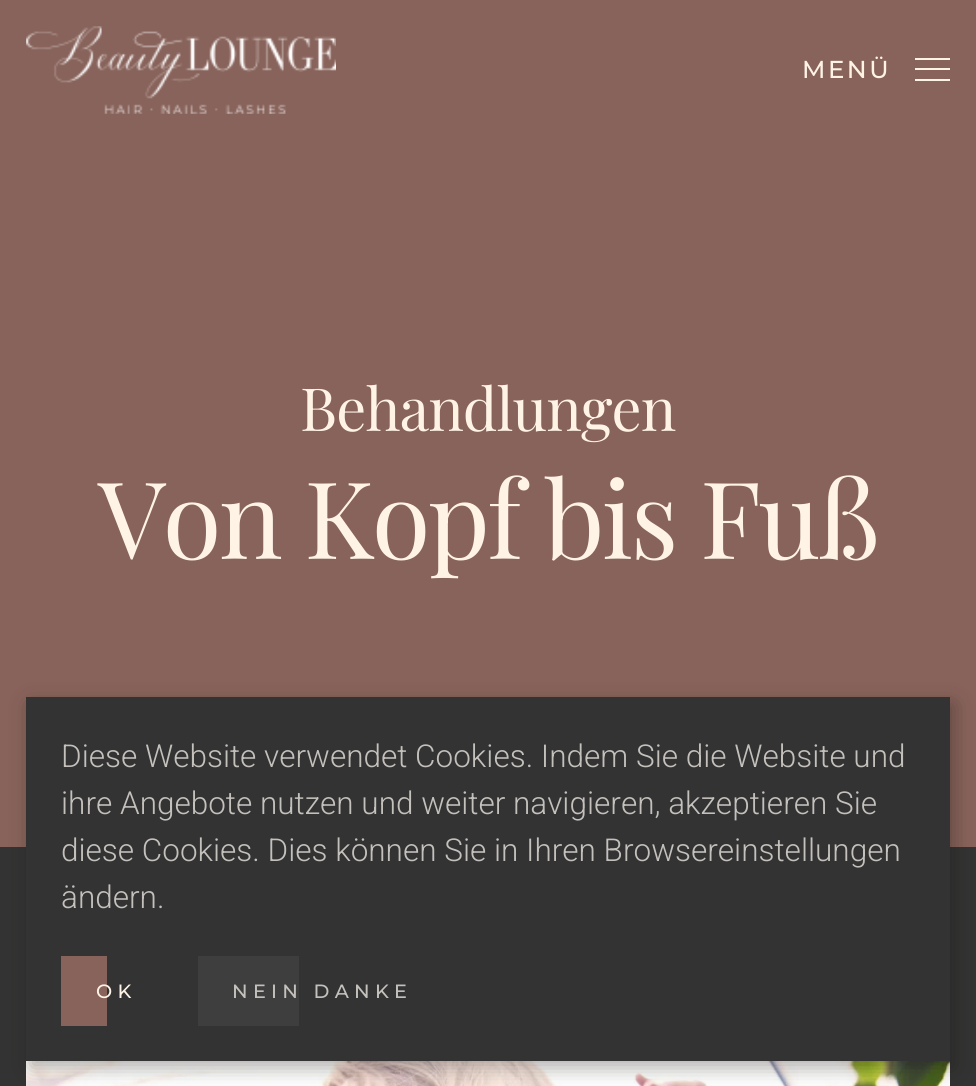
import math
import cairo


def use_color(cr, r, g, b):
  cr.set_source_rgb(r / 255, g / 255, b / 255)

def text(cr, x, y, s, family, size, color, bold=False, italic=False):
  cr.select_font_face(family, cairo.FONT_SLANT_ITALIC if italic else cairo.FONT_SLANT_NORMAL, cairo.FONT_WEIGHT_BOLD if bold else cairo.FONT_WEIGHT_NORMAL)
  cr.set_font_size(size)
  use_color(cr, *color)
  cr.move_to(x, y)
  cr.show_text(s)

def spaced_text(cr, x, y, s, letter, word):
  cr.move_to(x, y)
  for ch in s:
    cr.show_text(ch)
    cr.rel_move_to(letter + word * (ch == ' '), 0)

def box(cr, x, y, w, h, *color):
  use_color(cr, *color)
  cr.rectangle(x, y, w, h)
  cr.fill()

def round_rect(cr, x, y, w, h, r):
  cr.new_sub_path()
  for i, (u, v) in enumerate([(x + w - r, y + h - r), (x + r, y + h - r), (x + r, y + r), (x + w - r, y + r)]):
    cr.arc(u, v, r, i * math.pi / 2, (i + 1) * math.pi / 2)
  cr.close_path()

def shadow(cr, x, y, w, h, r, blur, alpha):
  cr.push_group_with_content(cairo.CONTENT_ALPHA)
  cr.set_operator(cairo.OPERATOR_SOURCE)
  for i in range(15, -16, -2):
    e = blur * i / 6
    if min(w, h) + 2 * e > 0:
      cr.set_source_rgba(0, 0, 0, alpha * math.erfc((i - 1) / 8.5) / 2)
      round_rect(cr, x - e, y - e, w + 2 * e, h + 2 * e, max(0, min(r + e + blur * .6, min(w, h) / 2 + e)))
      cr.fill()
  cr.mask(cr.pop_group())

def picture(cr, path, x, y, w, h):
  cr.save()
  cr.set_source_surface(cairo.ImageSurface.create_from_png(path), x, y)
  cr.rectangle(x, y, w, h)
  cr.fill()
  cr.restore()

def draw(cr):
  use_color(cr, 51, 51, 51)
  cr.paint()
  box(cr, 0, 0, 976, 847, 136, 99, 91)
  picture(cr, "img_01.png", 26, 26, 310, 88)
  box(cr, 915, 58, 35, 2, 255, 243, 230)
  box(cr, 915, 68, 35, 2, 255, 243, 230)
  box(cr, 915, 79, 35, 2, 255, 243, 230)
  picture(cr, "img_02.png", 26, 1061, 924, 25)
  use_color(cr, 25, 20, 17)
  shadow(cr, 30, 704, 924, 364, 0, 10.5, 0.35)
  box(cr, 26, 697, 924, 364, 51, 51, 51)
  box(cr, 61, 956, 46, 70, 136, 99, 91)
  box(cr, 198, 956, 101, 70, 62, 62, 62)
  cr.select_font_face("Montserrat Thin")
  cr.set_font_size(24.5)
  use_color(cr, 255, 243, 230)
  spaced_text(cr, 802, 78, "MENÜ", 2.5, 0)
  cr.select_font_face("Playfair Display")
  cr.set_font_size(59.5)
  spaced_text(cr, 300, 431, "Behandlungen", -0.9, 0)
  cr.set_font_size(107)
  spaced_text(cr, 98, 559, "Von Kopf bis Fuß", -2.6, 0)
  text(cr, 61, 767, "Diese Website verwendet Cookies. Indem Sie die Website und", "Roboto Light", 31.5, (196, 193, 189))
  text(cr, 61, 814, "ihre Angebote nutzen und weiter navigieren, akzeptieren Sie", "Roboto Light", 31.5, (196, 193, 189))
  text(cr, 61, 861, "diese Cookies. Dies können Sie in Ihren Browsereinstellungen", "Roboto Light", 31.5, (196, 193, 189))
  text(cr, 61, 908, "ändern.", "Roboto Light", 31.5, (196, 193, 189))
  cr.select_font_face("Montserrat Thin")
  cr.set_font_size(19.25)
  use_color(cr, 255, 243, 230)
  spaced_text(cr, 96, 998, "OK", 5.25, 0)
  use_color(cr, 196, 193, 189)
  spaced_text(cr, 232, 998, "NEIN DANKE", 5.25, 0)


surface = cairo.ImageSurface(cairo.FORMAT_RGB24, 976, 1086)
cr = cairo.Context(surface)
options = cairo.FontOptions()
options.set_hint_metrics(cairo.HINT_METRICS_OFF)
options.set_hint_style(cairo.HINT_STYLE_NONE)
cr.set_font_options(options)
cr.set_miter_limit(4)
draw(cr)
surface.write_to_png("out.png")
